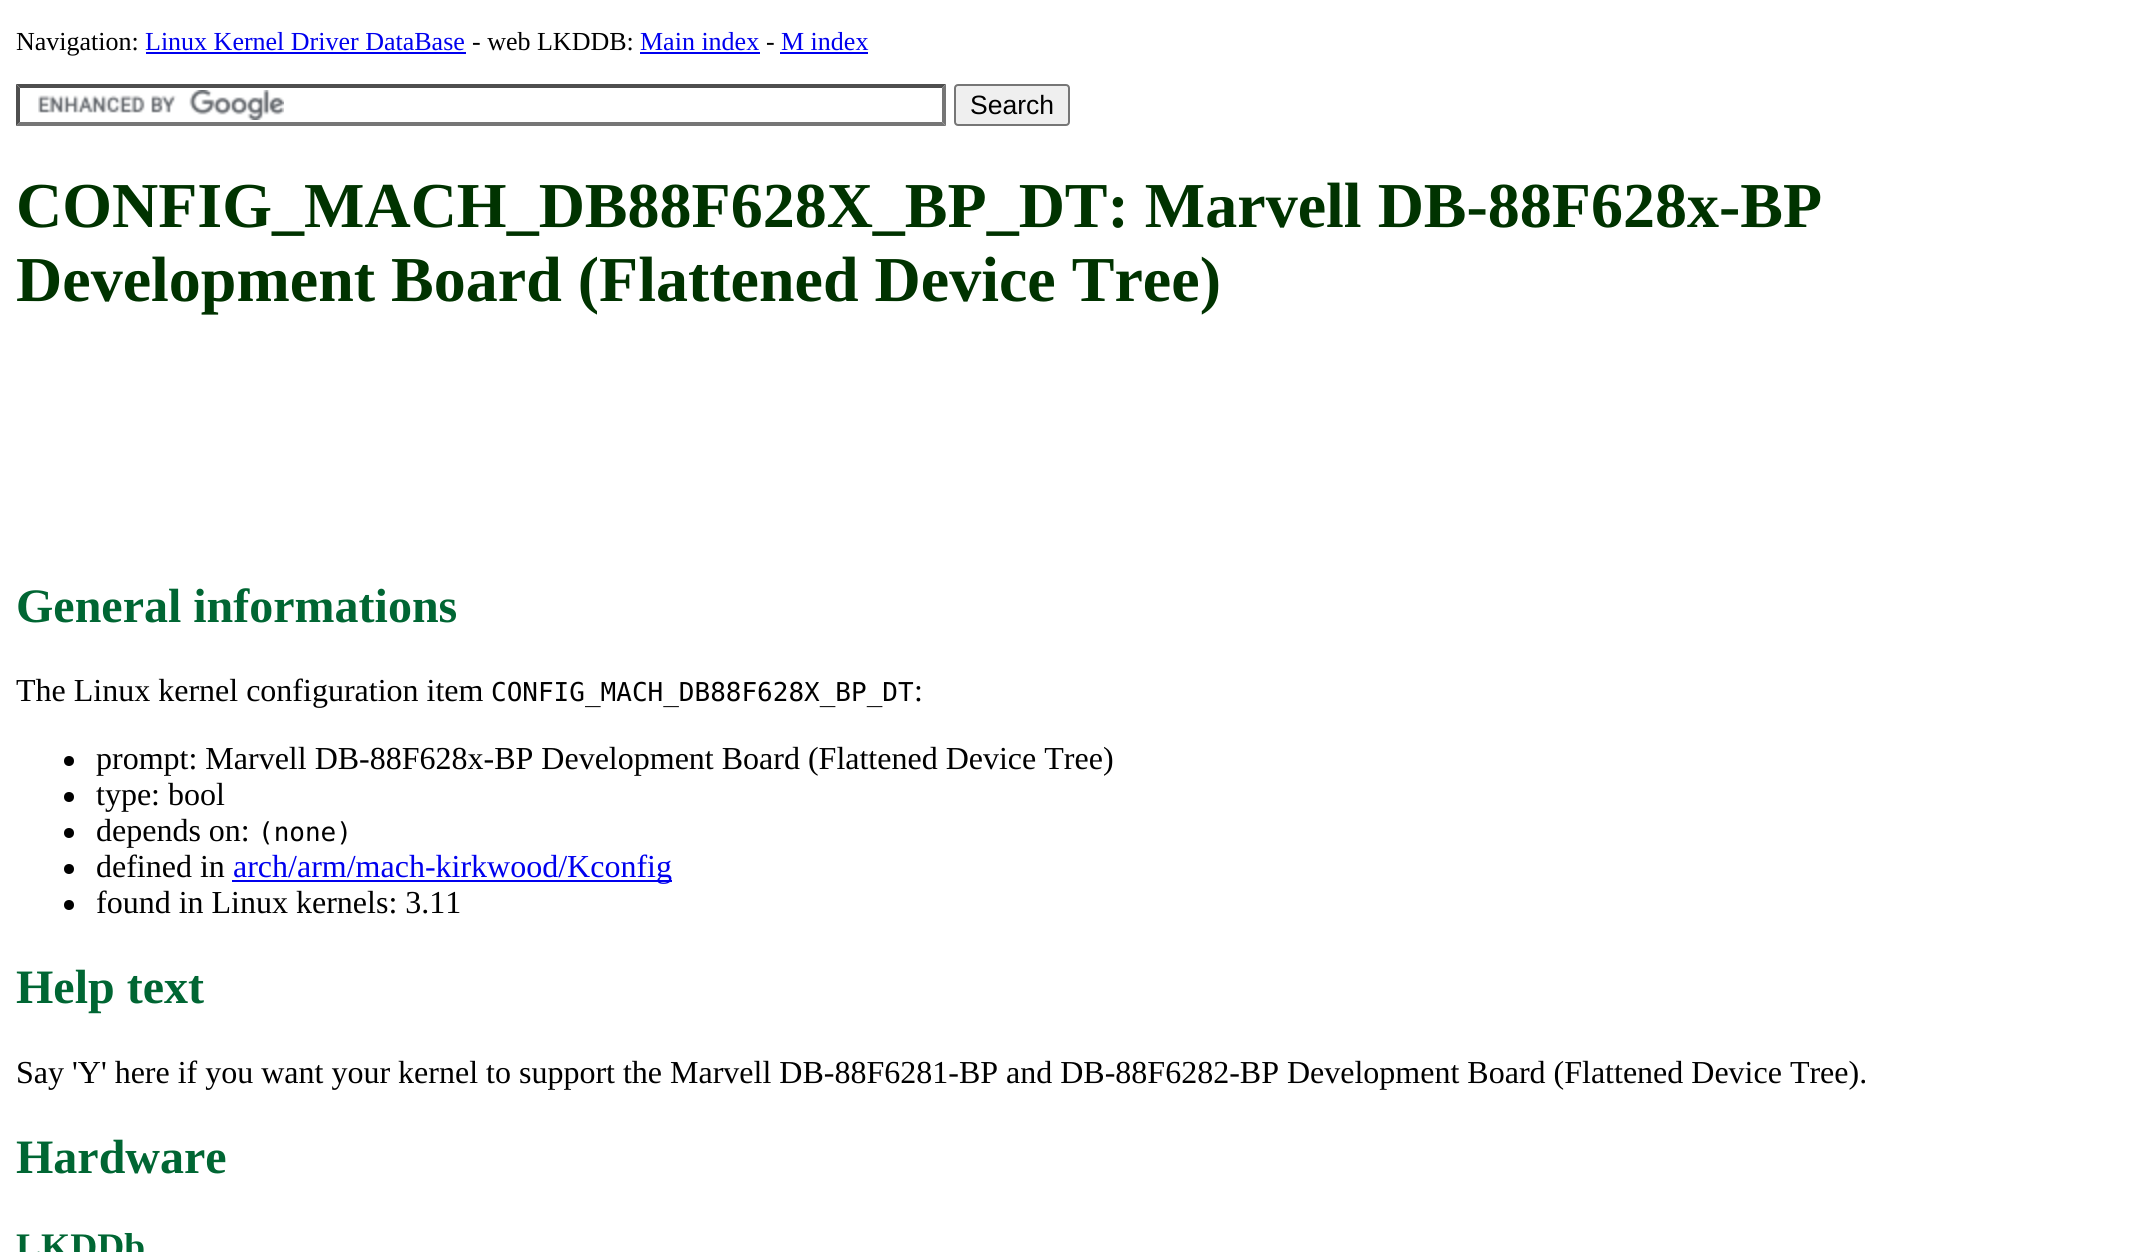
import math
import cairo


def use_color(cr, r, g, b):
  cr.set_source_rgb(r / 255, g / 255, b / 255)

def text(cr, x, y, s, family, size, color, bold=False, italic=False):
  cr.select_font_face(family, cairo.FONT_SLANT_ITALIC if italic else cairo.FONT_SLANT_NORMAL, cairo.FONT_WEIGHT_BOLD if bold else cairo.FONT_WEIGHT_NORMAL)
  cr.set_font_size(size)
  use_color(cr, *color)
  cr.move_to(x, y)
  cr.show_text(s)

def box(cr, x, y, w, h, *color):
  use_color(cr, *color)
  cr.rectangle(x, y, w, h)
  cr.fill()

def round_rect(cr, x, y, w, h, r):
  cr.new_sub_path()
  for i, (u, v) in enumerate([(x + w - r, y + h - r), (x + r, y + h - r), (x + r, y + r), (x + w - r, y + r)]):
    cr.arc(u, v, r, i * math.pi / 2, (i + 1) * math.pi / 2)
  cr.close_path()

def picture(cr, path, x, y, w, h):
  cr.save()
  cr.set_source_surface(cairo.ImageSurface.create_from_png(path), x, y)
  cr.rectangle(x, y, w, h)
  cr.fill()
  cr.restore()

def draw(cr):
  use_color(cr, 255, 255, 255)
  cr.paint()
  box(cr, 146, 52, 320, 2, 0, 0, 238)
  box(cr, 640, 52, 120, 2, 0, 0, 238)
  box(cr, 780, 52, 88, 2, 0, 0, 238)
  picture(cr, "img_01.png", 38, 90, 246, 30)
  use_color(cr, 79, 79, 79)
  cr.new_path()
  cr.move_to(16, 84)
  cr.line_to(946, 84)
  cr.line_to(942, 88)
  cr.line_to(20, 88)
  cr.close_path()
  cr.fill()
  use_color(cr, 118, 118, 118)
  cr.new_path()
  cr.move_to(946, 84)
  cr.line_to(946, 126)
  cr.line_to(942, 122)
  cr.line_to(942, 88)
  cr.close_path()
  cr.fill()
  cr.new_path()
  cr.move_to(946, 126)
  cr.line_to(16, 126)
  cr.line_to(20, 122)
  cr.line_to(942, 122)
  cr.close_path()
  cr.fill()
  use_color(cr, 79, 79, 79)
  cr.new_path()
  cr.move_to(16, 126)
  cr.line_to(16, 84)
  cr.line_to(20, 88)
  cr.line_to(20, 122)
  cr.close_path()
  cr.fill()
  use_color(cr, 239, 239, 239)
  round_rect(cr, 955, 85, 114, 40, 3)
  cr.fill_preserve()
  use_color(cr, 118, 118, 118)
  cr.stroke()
  use_color(cr, 0, 0, 0)
  cr.arc(69, 761, 5, 0, 2 * math.pi)
  cr.fill()
  cr.arc(69, 797, 5, 0, 2 * math.pi)
  cr.fill()
  cr.arc(69, 833, 5, 0, 2 * math.pi)
  cr.fill()
  cr.arc(69, 869, 5, 0, 2 * math.pi)
  cr.fill()
  box(cr, 232, 880, 440, 2, 0, 0, 238)
  use_color(cr, 0, 0, 0)
  cr.arc(69, 905, 5, 0, 2 * math.pi)
  cr.fill()
  text(cr, 16, 50, "Navigation:", "Liberation Serif", 26, (0, 0, 0))
  text(cr, 145, 50, "Linux Kernel Driver DataBase", "Liberation Serif", 26, (0, 0, 238))
  text(cr, 472, 50, "- web LKDDB:", "Liberation Serif", 26, (0, 0, 0))
  text(cr, 640, 50, "Main index", "Liberation Serif", 26, (0, 0, 238))
  text(cr, 766, 50, "-", "Liberation Serif", 26, (0, 0, 0))
  text(cr, 781, 50, "M index", "Liberation Serif", 26, (0, 0, 238))
  text(cr, 970, 114, "Search", "Liberation Sans", 26.5, (0, 0, 0))
  text(cr, 16, 227, "CONFIG_MACH_DB88F628X_BP_DT: Marvell DB-88F628x-BP", "Liberation Serif", 64, (0, 51, 0), bold=True)
  text(cr, 16, 301, "Development Board (Flattened Device Tree)", "Liberation Serif", 64, (0, 51, 0), bold=True)
  text(cr, 16, 622, "General informations", "Liberation Serif", 48, (0, 102, 51), bold=True)
  text(cr, 16, 701, "The Linux kernel configuration item", "Liberation Serif", 32, (0, 0, 0))
  text(cr, 491, 701, "CONFIG_MACH_DB88F628X_BP_DT", "DejaVu Sans Mono", 26, (0, 0, 0))
  text(cr, 914, 701, ":", "Liberation Serif", 32, (0, 0, 0))
  text(cr, 96, 769, "prompt: Marvell DB-88F628x-BP Development Board (Flattened Device Tree)", "Liberation Serif", 32, (0, 0, 0))
  text(cr, 96, 805, "type: bool", "Liberation Serif", 32, (0, 0, 0))
  text(cr, 96, 841, "depends on:", "Liberation Serif", 32, (0, 0, 0))
  text(cr, 258, 841, "(none)", "DejaVu Sans Mono", 26, (0, 0, 0))
  text(cr, 96, 877, "defined in", "Liberation Serif", 32, (0, 0, 0))
  text(cr, 233, 877, "arch/arm/mach-kirkwood/Kconfig", "Liberation Serif", 32, (0, 0, 238))
  text(cr, 96, 913, "found in Linux kernels: 3.11", "Liberation Serif", 32, (0, 0, 0))
  text(cr, 16, 1003, "Help text", "Liberation Serif", 48, (0, 102, 51), bold=True)
  text(cr, 16, 1083, "Say 'Y' here if you want your kernel to support the Marvell DB-88F6281-BP and DB-88F6282-BP Development Board (Flattened Device Tree).", "Liberation Serif", 32, (0, 0, 0))
  text(cr, 16, 1173, "Hardware", "Liberation Serif", 48, (0, 102, 51), bold=True)
  text(cr, 16, 1259, "LKDDb", "Liberation Serif", 37.5, (0, 102, 51), bold=True)


surface = cairo.ImageSurface(cairo.FORMAT_RGB24, 2155, 1252)
cr = cairo.Context(surface)
options = cairo.FontOptions()
options.set_hint_metrics(cairo.HINT_METRICS_OFF)
options.set_hint_style(cairo.HINT_STYLE_NONE)
cr.set_font_options(options)
cr.set_miter_limit(4)
draw(cr)
surface.write_to_png("out.png")
